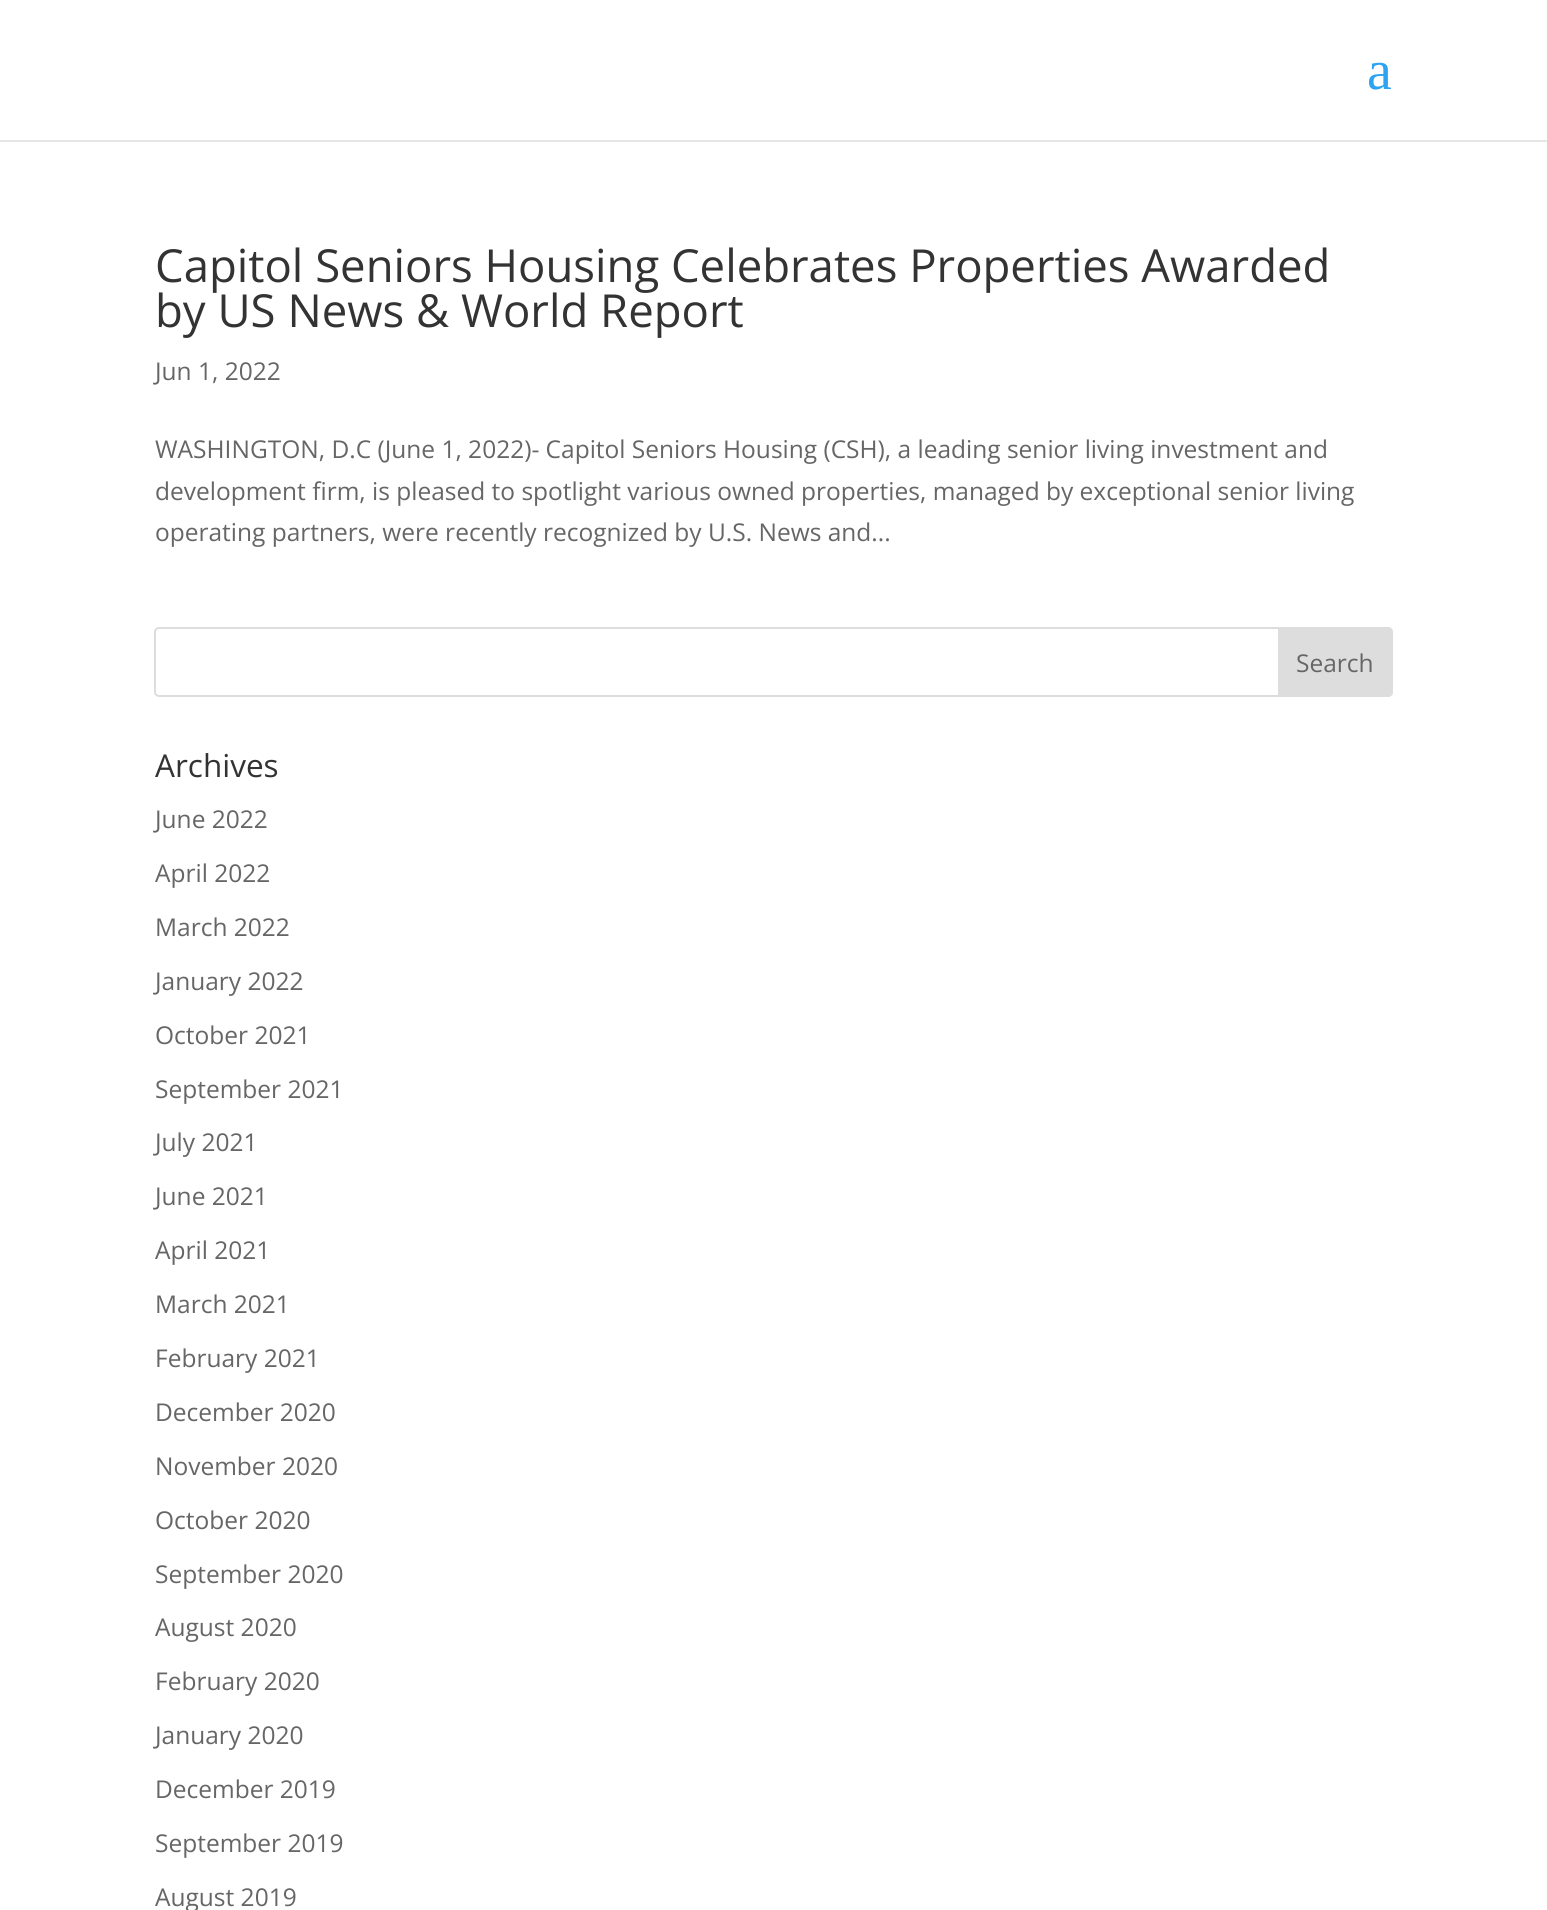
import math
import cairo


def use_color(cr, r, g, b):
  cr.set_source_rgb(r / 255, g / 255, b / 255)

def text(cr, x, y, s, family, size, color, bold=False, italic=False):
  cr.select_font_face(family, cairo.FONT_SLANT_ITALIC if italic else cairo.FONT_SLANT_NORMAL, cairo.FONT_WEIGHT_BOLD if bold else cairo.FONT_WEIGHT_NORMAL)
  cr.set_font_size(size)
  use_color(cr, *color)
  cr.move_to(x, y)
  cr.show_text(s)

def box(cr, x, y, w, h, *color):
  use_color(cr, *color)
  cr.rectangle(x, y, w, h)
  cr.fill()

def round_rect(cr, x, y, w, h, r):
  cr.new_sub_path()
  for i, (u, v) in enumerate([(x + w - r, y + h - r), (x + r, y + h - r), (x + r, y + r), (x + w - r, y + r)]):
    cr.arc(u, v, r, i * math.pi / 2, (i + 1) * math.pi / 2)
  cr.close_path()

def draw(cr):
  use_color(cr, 255, 255, 255)
  cr.paint()
  box(cr, 0, 140, 1547, 2, 230, 230, 230)
  round_rect(cr, 155, 628, 1237, 68, 4)
  use_color(cr, 221, 221, 221)
  cr.stroke()
  cr.new_path()
  cr.move_to(1279, 628)
  cr.line_to(1388, 628)
  cr.curve_to(1390, 628, 1392, 630, 1392, 632)
  cr.line_to(1392, 692)
  cr.curve_to(1392, 694, 1390, 696, 1388, 696)
  cr.line_to(1279, 696)
  cr.close_path()
  cr.fill_preserve()
  cr.stroke()
  text(cr, 1367, 89, "a", "Liberation Serif", 56, (46, 163, 242))
  text(cr, 155, 282, "Capitol Seniors Housing Celebrates Properties Awarded", "Open Sans", 45.5, (51, 51, 51))
  text(cr, 155, 327, "by US News & World Report", "Open Sans", 45.5, (51, 51, 51))
  text(cr, 155, 380, "Jun 1, 2022", "Open Sans", 24.5, (102, 102, 102))
  text(cr, 155, 458, "WASHINGTON, D.C (June 1, 2022)- Capitol Seniors Housing (CSH), a leading senior living investment and", "Open Sans", 24.5, (102, 102, 102))
  text(cr, 155, 500, "development firm, is pleased to spotlight various owned properties, managed by exceptional senior living", "Open Sans", 24.5, (102, 102, 102))
  text(cr, 155, 541, "operating partners, were recently recognized by U.S. News and...", "Open Sans", 24.5, (102, 102, 102))
  text(cr, 1296, 672, "Search", "Open Sans", 24.5, (102, 102, 102))
  text(cr, 155, 777, "Archives", "Open Sans", 31.5, (51, 51, 51))
  text(cr, 155, 828, "June 2022", "Open Sans", 24.5, (102, 102, 102))
  text(cr, 155, 882, "April 2022", "Open Sans", 24.5, (102, 102, 102))
  text(cr, 155, 936, "March 2022", "Open Sans", 24.5, (102, 102, 102))
  text(cr, 155, 990, "January 2022", "Open Sans", 24.5, (102, 102, 102))
  text(cr, 155, 1044, "October 2021", "Open Sans", 24.5, (102, 102, 102))
  text(cr, 155, 1098, "September 2021", "Open Sans", 24.5, (102, 102, 102))
  text(cr, 155, 1151, "July 2021", "Open Sans", 24.5, (102, 102, 102))
  text(cr, 155, 1205, "June 2021", "Open Sans", 24.5, (102, 102, 102))
  text(cr, 155, 1259, "April 2021", "Open Sans", 24.5, (102, 102, 102))
  text(cr, 155, 1313, "March 2021", "Open Sans", 24.5, (102, 102, 102))
  text(cr, 155, 1367, "February 2021", "Open Sans", 24.5, (102, 102, 102))
  text(cr, 155, 1421, "December 2020", "Open Sans", 24.5, (102, 102, 102))
  text(cr, 155, 1475, "November 2020", "Open Sans", 24.5, (102, 102, 102))
  text(cr, 155, 1529, "October 2020", "Open Sans", 24.5, (102, 102, 102))
  text(cr, 155, 1583, "September 2020", "Open Sans", 24.5, (102, 102, 102))
  text(cr, 155, 1636, "August 2020", "Open Sans", 24.5, (102, 102, 102))
  text(cr, 155, 1690, "February 2020", "Open Sans", 24.5, (102, 102, 102))
  text(cr, 155, 1744, "January 2020", "Open Sans", 24.5, (102, 102, 102))
  text(cr, 155, 1798, "December 2019", "Open Sans", 24.5, (102, 102, 102))
  text(cr, 155, 1852, "September 2019", "Open Sans", 24.5, (102, 102, 102))
  text(cr, 155, 1906, "August 2019", "Open Sans", 24.5, (102, 102, 102))


surface = cairo.ImageSurface(cairo.FORMAT_RGB24, 1547, 1910)
cr = cairo.Context(surface)
options = cairo.FontOptions()
options.set_hint_metrics(cairo.HINT_METRICS_OFF)
options.set_hint_style(cairo.HINT_STYLE_NONE)
cr.set_font_options(options)
cr.set_miter_limit(4)
draw(cr)
surface.write_to_png("out.png")
